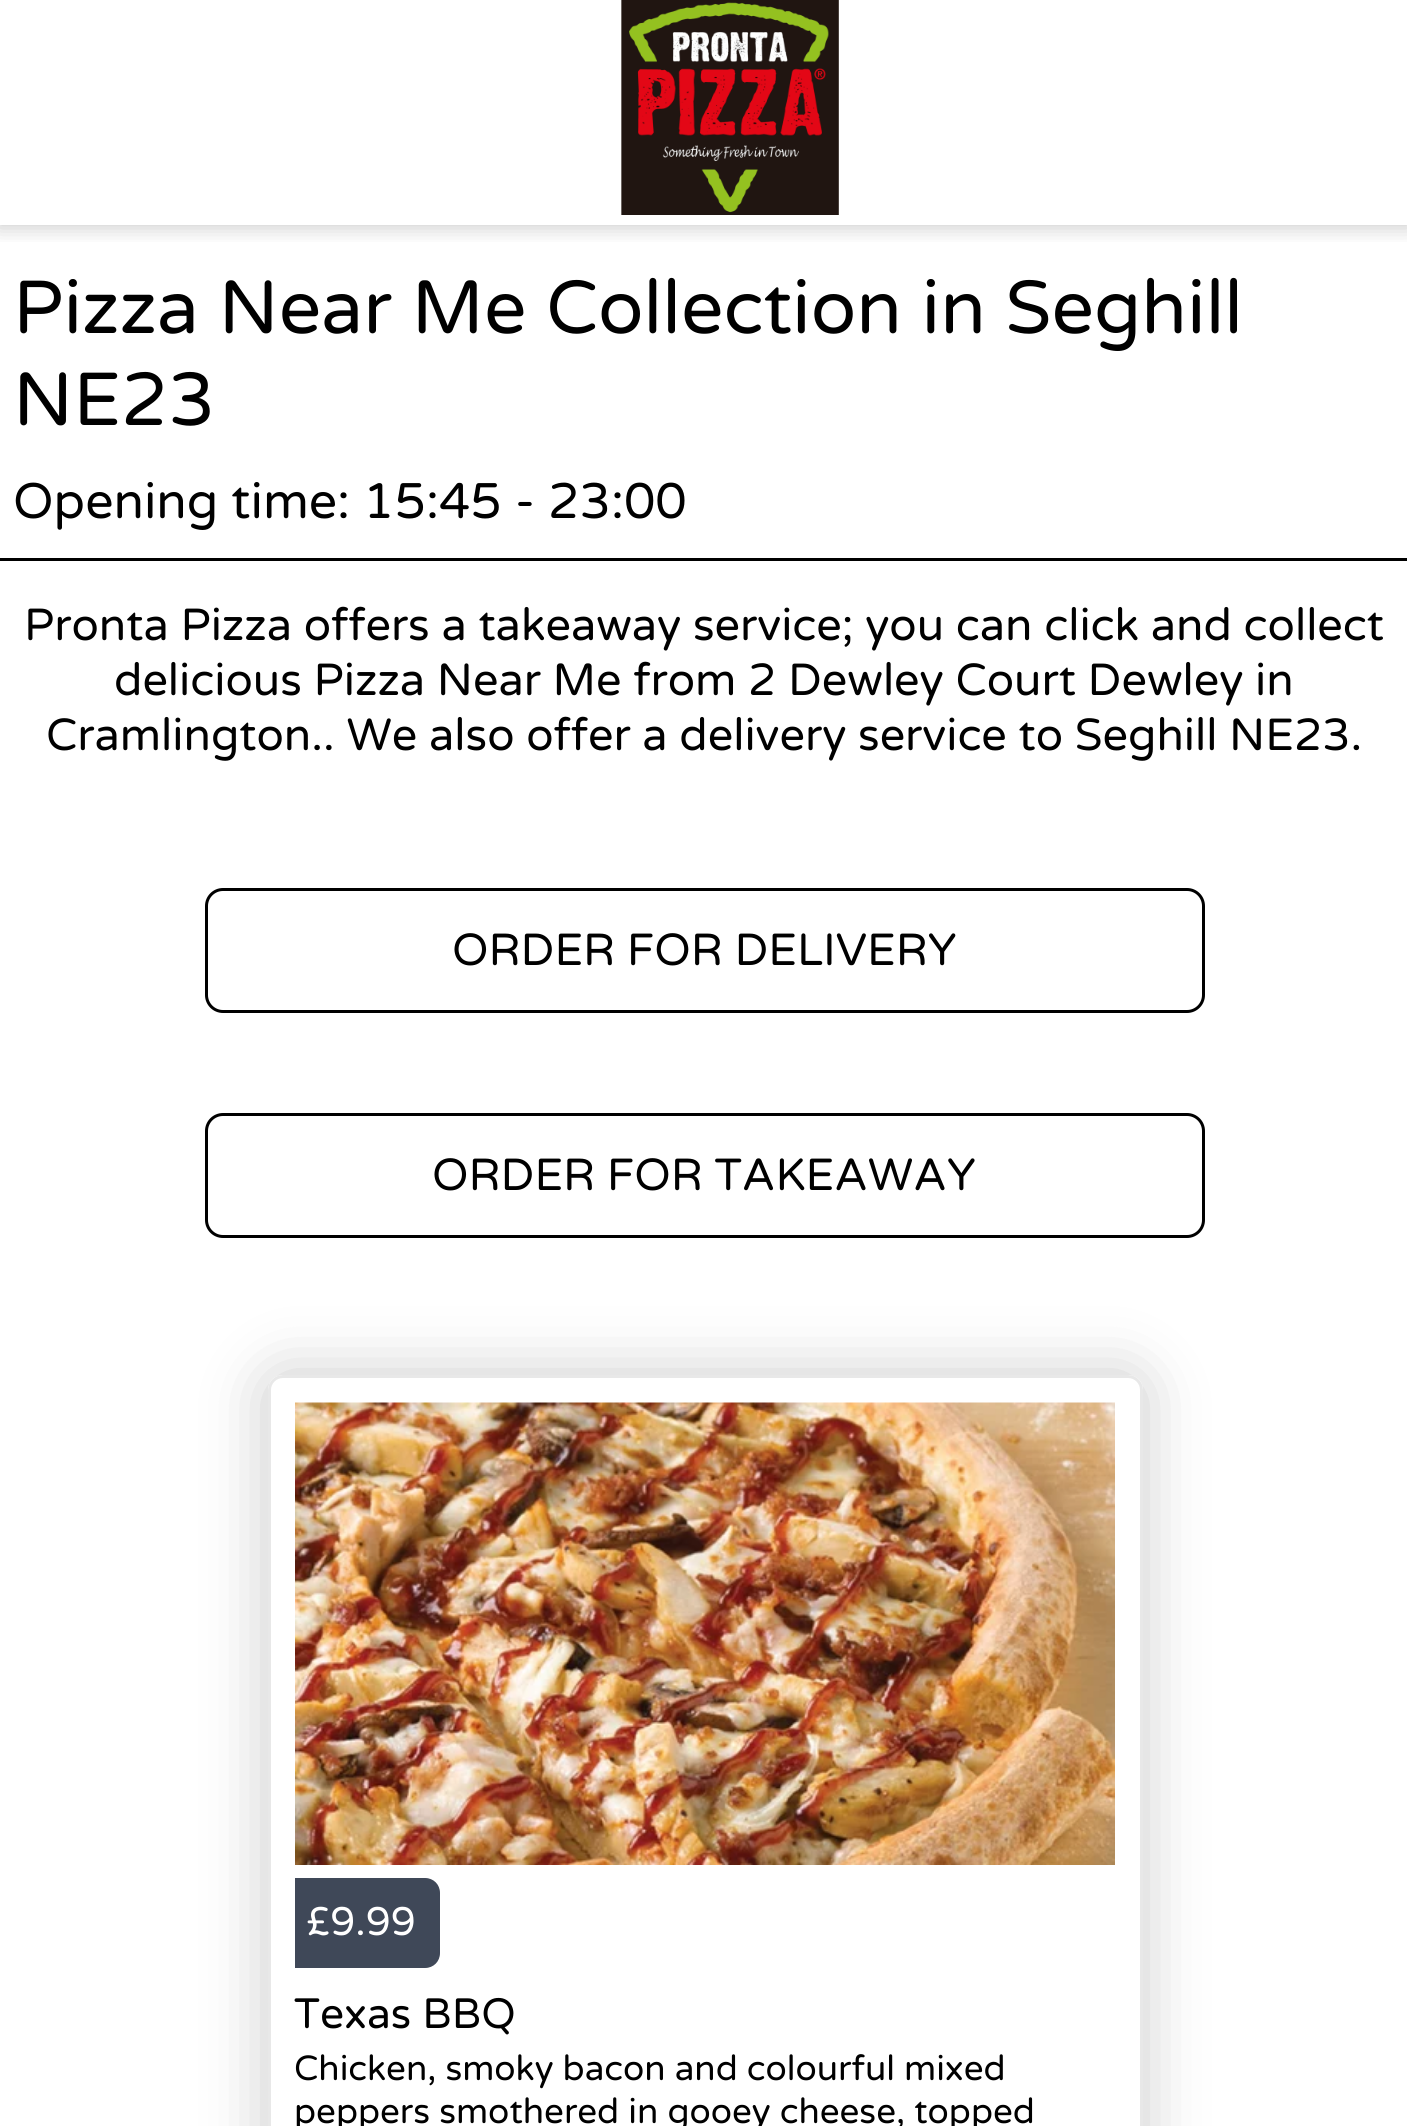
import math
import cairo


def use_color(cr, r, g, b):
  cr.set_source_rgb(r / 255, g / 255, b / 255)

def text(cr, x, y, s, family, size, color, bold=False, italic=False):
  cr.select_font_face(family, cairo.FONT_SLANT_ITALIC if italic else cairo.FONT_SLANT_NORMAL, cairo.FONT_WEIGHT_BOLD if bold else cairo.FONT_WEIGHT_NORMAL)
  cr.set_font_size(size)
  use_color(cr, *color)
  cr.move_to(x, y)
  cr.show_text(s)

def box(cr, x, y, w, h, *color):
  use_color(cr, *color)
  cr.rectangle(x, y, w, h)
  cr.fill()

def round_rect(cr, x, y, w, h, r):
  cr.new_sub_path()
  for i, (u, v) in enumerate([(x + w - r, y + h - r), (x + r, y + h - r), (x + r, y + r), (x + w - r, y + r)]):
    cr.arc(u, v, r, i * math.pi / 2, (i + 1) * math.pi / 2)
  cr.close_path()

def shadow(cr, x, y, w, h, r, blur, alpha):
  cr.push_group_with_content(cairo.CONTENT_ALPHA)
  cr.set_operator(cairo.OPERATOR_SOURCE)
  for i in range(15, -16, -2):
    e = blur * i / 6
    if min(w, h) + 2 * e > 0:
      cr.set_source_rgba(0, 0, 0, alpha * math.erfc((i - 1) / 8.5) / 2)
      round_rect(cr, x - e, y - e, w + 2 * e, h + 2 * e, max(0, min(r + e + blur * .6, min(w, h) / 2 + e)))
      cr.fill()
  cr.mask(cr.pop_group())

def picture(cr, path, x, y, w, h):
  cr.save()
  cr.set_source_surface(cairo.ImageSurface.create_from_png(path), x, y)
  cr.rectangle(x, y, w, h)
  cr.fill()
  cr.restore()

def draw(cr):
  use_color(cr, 255, 255, 255)
  cr.paint()
  cr.save()
  cr.rectangle(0, 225, 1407, 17)
  cr.clip()
  use_color(cr, 53, 53, 53)
  shadow(cr, -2, -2, 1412, 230, 0, 10, 0.25)
  cr.restore()
  picture(cr, "img_01.png", 621, 0, 218, 215)
  box(cr, 0, 558, 1407, 3, 0, 0, 0)
  round_rect(cr, 206.5, 889.5, 997, 122, 16.5)
  cr.set_line_width(3)
  cr.stroke()
  round_rect(cr, 206.5, 1114.5, 997, 122, 16.5)
  cr.stroke()
  use_color(cr, 53, 53, 53)
  shadow(cr, 265, 1373, 880, 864, 18, 31, 0.25)
  use_color(cr, 255, 255, 255)
  cr.new_path()
  cr.move_to(283, 1375)
  cr.line_to(1128, 1375)
  cr.curve_to(1136.5, 1375, 1143, 1381.5, 1143, 1390)
  cr.line_to(1143, 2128)
  cr.line_to(268, 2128)
  cr.line_to(268, 1390)
  cr.curve_to(268, 1381.5, 274.5, 1375, 283, 1375)
  cr.close_path()
  cr.fill()
  round_rect(cr, 269.5, 1376.5, 872, 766, 13.5)
  use_color(cr, 232, 232, 232)
  cr.stroke()
  picture(cr, "img_02.png", 295, 1402, 820, 463)
  use_color(cr, 63, 72, 88)
  cr.new_path()
  cr.move_to(295, 1878)
  cr.line_to(425, 1878)
  cr.curve_to(433.5, 1878, 440, 1884.5, 440, 1893)
  cr.line_to(440, 1953)
  cr.curve_to(440, 1961.5, 433.5, 1968, 425, 1968)
  cr.line_to(295, 1968)
  cr.close_path()
  cr.fill()
  text(cr, 13, 333, "Pizza Near Me Collection in Seghill", "Varela Round", 75, (0, 0, 0))
  text(cr, 13, 425, "NE23", "Varela Round", 75, (0, 0, 0))
  text(cr, 13, 518, "Opening time: 15:45 - 23:00", "Varela Round", 50, (0, 0, 0))
  text(cr, 24, 640, "Pronta Pizza offers a takeaway service; you can click and collect", "Varela Round", 45, (0, 0, 0))
  text(cr, 114, 695, "delicious Pizza Near Me from 2 Dewley Court Dewley in", "Varela Round", 45, (0, 0, 0))
  text(cr, 46, 750, "Cramlington.. We also offer a delivery service to Seghill NE23.", "Varela Round", 45, (0, 0, 0))
  text(cr, 452, 965, "ORDER FOR DELIVERY", "Varela Round", 45, (0, 0, 0))
  text(cr, 432, 1190, "ORDER FOR TAKEAWAY", "Varela Round", 45, (0, 0, 0))
  text(cr, 306, 1935, "£9.99", "Varela Round", 40, (255, 255, 255))
  text(cr, 294, 2028, "Texas BBQ", "Varela Round", 42.5, (0, 0, 0))
  text(cr, 294, 2080, "Chicken, smoky bacon and colourful mixed", "Varela Round", 35, (0, 0, 0))
  text(cr, 294, 2123, "peppers smothered in gooey cheese, topped", "Varela Round", 35, (0, 0, 0))


surface = cairo.ImageSurface(cairo.FORMAT_RGB24, 1407, 2126)
cr = cairo.Context(surface)
options = cairo.FontOptions()
options.set_hint_metrics(cairo.HINT_METRICS_OFF)
options.set_hint_style(cairo.HINT_STYLE_NONE)
cr.set_font_options(options)
cr.set_miter_limit(4)
draw(cr)
surface.write_to_png("out.png")
